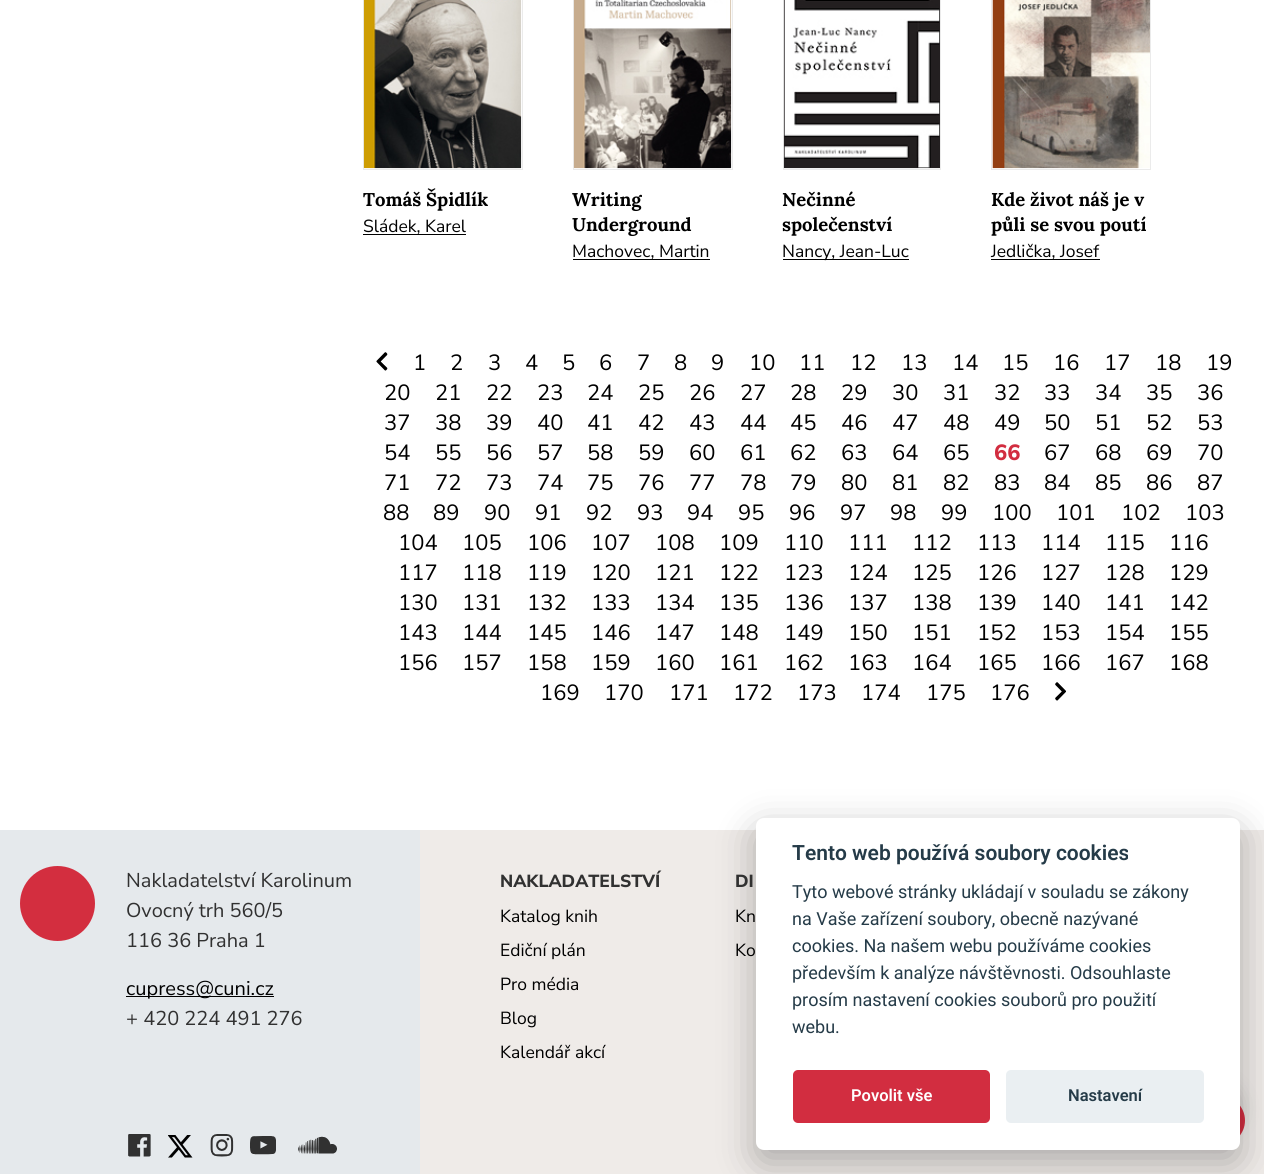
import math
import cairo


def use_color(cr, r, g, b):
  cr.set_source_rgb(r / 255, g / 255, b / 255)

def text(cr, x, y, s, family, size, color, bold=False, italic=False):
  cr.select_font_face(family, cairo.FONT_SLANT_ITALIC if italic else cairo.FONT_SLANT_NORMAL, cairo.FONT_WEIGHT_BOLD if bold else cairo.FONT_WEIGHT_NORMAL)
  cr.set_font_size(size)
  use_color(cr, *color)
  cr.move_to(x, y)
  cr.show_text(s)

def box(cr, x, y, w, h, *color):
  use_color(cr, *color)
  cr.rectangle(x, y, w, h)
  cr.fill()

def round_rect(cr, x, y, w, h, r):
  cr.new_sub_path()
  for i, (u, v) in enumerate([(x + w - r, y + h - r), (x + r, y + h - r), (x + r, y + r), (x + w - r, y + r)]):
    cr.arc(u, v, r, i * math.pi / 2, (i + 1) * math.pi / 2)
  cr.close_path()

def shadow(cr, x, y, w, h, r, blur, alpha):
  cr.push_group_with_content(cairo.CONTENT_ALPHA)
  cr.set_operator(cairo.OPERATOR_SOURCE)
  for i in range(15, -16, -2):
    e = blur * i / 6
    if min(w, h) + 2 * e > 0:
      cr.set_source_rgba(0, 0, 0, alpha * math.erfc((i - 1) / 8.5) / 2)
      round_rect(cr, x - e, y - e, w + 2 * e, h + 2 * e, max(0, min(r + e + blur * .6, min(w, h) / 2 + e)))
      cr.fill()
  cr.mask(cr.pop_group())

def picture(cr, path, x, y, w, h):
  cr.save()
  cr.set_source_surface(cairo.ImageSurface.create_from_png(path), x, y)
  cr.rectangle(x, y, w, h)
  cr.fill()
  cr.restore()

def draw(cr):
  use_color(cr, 255, 255, 255)
  cr.paint()
  cr.rectangle(363.5, -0.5, 159, 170)
  use_color(cr, 235, 235, 235)
  cr.set_line_width(1)
  cr.stroke()
  picture(cr, "img_01.png", 363, 0, 159, 169)
  box(cr, 363, 234, 103, 1, 0, 0, 0)
  cr.rectangle(573.5, -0.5, 159, 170)
  use_color(cr, 235, 235, 235)
  cr.stroke()
  picture(cr, "img_02.png", 573, 0, 159, 169)
  box(cr, 573, 259, 137, 1, 0, 0, 0)
  cr.rectangle(783.5, -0.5, 157, 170)
  use_color(cr, 235, 235, 235)
  cr.stroke()
  picture(cr, "img_03.png", 783, 0, 157, 169)
  box(cr, 783, 259, 126, 1, 0, 0, 0)
  cr.rectangle(991.5, -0.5, 159, 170)
  use_color(cr, 235, 235, 235)
  cr.stroke()
  picture(cr, "img_04.png", 992, 0, 158, 169)
  box(cr, 991, 259, 109, 1, 0, 0, 0)
  picture(cr, "img_05.png", 376, 352, 12, 19)
  picture(cr, "img_06.png", 1055, 682, 11, 19)
  box(cr, 0, 830, 420, 344, 229, 233, 236)
  use_color(cr, 211, 46, 63)
  cr.arc(57.5, 903.5, 37.5, 0, 2 * math.pi)
  cr.fill()
  box(cr, 126, 996, 148, 1, 0, 0, 0)
  box(cr, 420, 830, 825, 344, 239, 235, 232)
  picture(cr, "img_07.png", 128, 1134, 23, 23)
  picture(cr, "img_08.png", 168, 1135, 25, 23)
  picture(cr, "img_09.png", 210, 1134, 24, 23)
  picture(cr, "img_10.png", 250, 1136, 26, 19)
  picture(cr, "img_11.png", 298, 1136, 39, 18)
  box(cr, 1245, 830, 19, 344, 239, 235, 232)
  use_color(cr, 0, 0, 0)
  shadow(cr, 1190, 1084, 49, 49, 24.5, 9.5, 0.2)
  use_color(cr, 210, 45, 64)
  cr.arc(1220.5, 1120.5, 24.5, 0, 2 * math.pi)
  cr.fill()
  use_color(cr, 2, 2, 3)
  shadow(cr, 756, 830, 484, 333, 8, 19, 0.28)
  use_color(cr, 255, 255, 255)
  round_rect(cr, 756, 818, 484, 332, 8)
  cr.fill()
  use_color(cr, 210, 45, 64)
  round_rect(cr, 793, 1070, 197, 53, 5)
  cr.fill()
  use_color(cr, 234, 239, 242)
  round_rect(cr, 1006, 1070, 198, 53, 5)
  cr.fill()
  text(cr, 363, 206, "Tomáš Špidlík", "Lora", 18.5, (0, 0, 0), bold=True)
  text(cr, 363, 232, "Sládek, Karel", "Nunito Sans", 17.5, (0, 0, 0))
  text(cr, 572, 206, "Writing", "Lora", 18.5, (0, 0, 0), bold=True)
  text(cr, 572, 231, "Underground", "Lora", 18.5, (0, 0, 0), bold=True)
  text(cr, 572, 257, "Machovec, Martin", "Nunito Sans", 17.5, (0, 0, 0))
  text(cr, 782, 206, "Nečinné", "Lora", 18.5, (0, 0, 0), bold=True)
  text(cr, 782, 231, "společenství", "Lora", 18.5, (0, 0, 0), bold=True)
  text(cr, 782, 257, "Nancy, Jean-Luc", "Nunito Sans", 17.5, (0, 0, 0))
  text(cr, 991, 206, "Kde život náš je v", "Lora", 18.5, (0, 0, 0), bold=True)
  text(cr, 991, 231, "půli se svou poutí", "Lora", 18.5, (0, 0, 0), bold=True)
  text(cr, 991, 257, "Jedlička, Josef", "Nunito Sans", 17.5, (0, 0, 0))
  text(cr, 413, 370, "1", "Nunito Sans", 22, (0, 0, 0))
  text(cr, 450, 370, "2", "Nunito Sans", 22, (0, 0, 0))
  text(cr, 488, 370, "3", "Nunito Sans", 22, (0, 0, 0))
  text(cr, 525, 370, "4", "Nunito Sans", 22, (0, 0, 0))
  text(cr, 562, 370, "5", "Nunito Sans", 22, (0, 0, 0))
  text(cr, 599, 370, "6", "Nunito Sans", 22, (0, 0, 0))
  text(cr, 637, 370, "7", "Nunito Sans", 22, (0, 0, 0))
  text(cr, 674, 370, "8", "Nunito Sans", 22, (0, 0, 0))
  text(cr, 711, 370, "9", "Nunito Sans", 22, (0, 0, 0))
  text(cr, 749, 370, "10", "Nunito Sans", 22, (0, 0, 0))
  text(cr, 799, 370, "11", "Nunito Sans", 22, (0, 0, 0))
  text(cr, 850, 370, "12", "Nunito Sans", 22, (0, 0, 0))
  text(cr, 901, 370, "13", "Nunito Sans", 22, (0, 0, 0))
  text(cr, 952, 370, "14", "Nunito Sans", 22, (0, 0, 0))
  text(cr, 1002, 370, "15", "Nunito Sans", 22, (0, 0, 0))
  text(cr, 1053, 370, "16", "Nunito Sans", 22, (0, 0, 0))
  text(cr, 1104, 370, "17", "Nunito Sans", 22, (0, 0, 0))
  text(cr, 1155, 370, "18", "Nunito Sans", 22, (0, 0, 0))
  text(cr, 1206, 370, "19", "Nunito Sans", 22, (0, 0, 0))
  text(cr, 384, 400, "20", "Nunito Sans", 22, (0, 0, 0))
  text(cr, 435, 400, "21", "Nunito Sans", 22, (0, 0, 0))
  text(cr, 486, 400, "22", "Nunito Sans", 22, (0, 0, 0))
  text(cr, 537, 400, "23", "Nunito Sans", 22, (0, 0, 0))
  text(cr, 587, 400, "24", "Nunito Sans", 22, (0, 0, 0))
  text(cr, 638, 400, "25", "Nunito Sans", 22, (0, 0, 0))
  text(cr, 689, 400, "26", "Nunito Sans", 22, (0, 0, 0))
  text(cr, 740, 400, "27", "Nunito Sans", 22, (0, 0, 0))
  text(cr, 790, 400, "28", "Nunito Sans", 22, (0, 0, 0))
  text(cr, 841, 400, "29", "Nunito Sans", 22, (0, 0, 0))
  text(cr, 892, 400, "30", "Nunito Sans", 22, (0, 0, 0))
  text(cr, 943, 400, "31", "Nunito Sans", 22, (0, 0, 0))
  text(cr, 994, 400, "32", "Nunito Sans", 22, (0, 0, 0))
  text(cr, 1044, 400, "33", "Nunito Sans", 22, (0, 0, 0))
  text(cr, 1095, 400, "34", "Nunito Sans", 22, (0, 0, 0))
  text(cr, 1146, 400, "35", "Nunito Sans", 22, (0, 0, 0))
  text(cr, 1197, 400, "36", "Nunito Sans", 22, (0, 0, 0))
  text(cr, 384, 430, "37", "Nunito Sans", 22, (0, 0, 0))
  text(cr, 435, 430, "38", "Nunito Sans", 22, (0, 0, 0))
  text(cr, 486, 430, "39", "Nunito Sans", 22, (0, 0, 0))
  text(cr, 537, 430, "40", "Nunito Sans", 22, (0, 0, 0))
  text(cr, 587, 430, "41", "Nunito Sans", 22, (0, 0, 0))
  text(cr, 638, 430, "42", "Nunito Sans", 22, (0, 0, 0))
  text(cr, 689, 430, "43", "Nunito Sans", 22, (0, 0, 0))
  text(cr, 740, 430, "44", "Nunito Sans", 22, (0, 0, 0))
  text(cr, 790, 430, "45", "Nunito Sans", 22, (0, 0, 0))
  text(cr, 841, 430, "46", "Nunito Sans", 22, (0, 0, 0))
  text(cr, 892, 430, "47", "Nunito Sans", 22, (0, 0, 0))
  text(cr, 943, 430, "48", "Nunito Sans", 22, (0, 0, 0))
  text(cr, 994, 430, "49", "Nunito Sans", 22, (0, 0, 0))
  text(cr, 1044, 430, "50", "Nunito Sans", 22, (0, 0, 0))
  text(cr, 1095, 430, "51", "Nunito Sans", 22, (0, 0, 0))
  text(cr, 1146, 430, "52", "Nunito Sans", 22, (0, 0, 0))
  text(cr, 1197, 430, "53", "Nunito Sans", 22, (0, 0, 0))
  text(cr, 384, 460, "54", "Nunito Sans", 22, (0, 0, 0))
  text(cr, 435, 460, "55", "Nunito Sans", 22, (0, 0, 0))
  text(cr, 486, 460, "56", "Nunito Sans", 22, (0, 0, 0))
  text(cr, 537, 460, "57", "Nunito Sans", 22, (0, 0, 0))
  text(cr, 587, 460, "58", "Nunito Sans", 22, (0, 0, 0))
  text(cr, 638, 460, "59", "Nunito Sans", 22, (0, 0, 0))
  text(cr, 689, 460, "60", "Nunito Sans", 22, (0, 0, 0))
  text(cr, 740, 460, "61", "Nunito Sans", 22, (0, 0, 0))
  text(cr, 790, 460, "62", "Nunito Sans", 22, (0, 0, 0))
  text(cr, 841, 460, "63", "Nunito Sans", 22, (0, 0, 0))
  text(cr, 892, 460, "64", "Nunito Sans", 22, (0, 0, 0))
  text(cr, 943, 460, "65", "Nunito Sans", 22, (0, 0, 0))
  text(cr, 994, 460, "66", "Nunito Sans ExtraBold", 22, (210, 45, 64))
  text(cr, 1044, 460, "67", "Nunito Sans", 22, (0, 0, 0))
  text(cr, 1095, 460, "68", "Nunito Sans", 22, (0, 0, 0))
  text(cr, 1146, 460, "69", "Nunito Sans", 22, (0, 0, 0))
  text(cr, 1197, 460, "70", "Nunito Sans", 22, (0, 0, 0))
  text(cr, 384, 490, "71", "Nunito Sans", 22, (0, 0, 0))
  text(cr, 435, 490, "72", "Nunito Sans", 22, (0, 0, 0))
  text(cr, 486, 490, "73", "Nunito Sans", 22, (0, 0, 0))
  text(cr, 537, 490, "74", "Nunito Sans", 22, (0, 0, 0))
  text(cr, 587, 490, "75", "Nunito Sans", 22, (0, 0, 0))
  text(cr, 638, 490, "76", "Nunito Sans", 22, (0, 0, 0))
  text(cr, 689, 490, "77", "Nunito Sans", 22, (0, 0, 0))
  text(cr, 740, 490, "78", "Nunito Sans", 22, (0, 0, 0))
  text(cr, 790, 490, "79", "Nunito Sans", 22, (0, 0, 0))
  text(cr, 841, 490, "80", "Nunito Sans", 22, (0, 0, 0))
  text(cr, 892, 490, "81", "Nunito Sans", 22, (0, 0, 0))
  text(cr, 943, 490, "82", "Nunito Sans", 22, (0, 0, 0))
  text(cr, 994, 490, "83", "Nunito Sans", 22, (0, 0, 0))
  text(cr, 1044, 490, "84", "Nunito Sans", 22, (0, 0, 0))
  text(cr, 1095, 490, "85", "Nunito Sans", 22, (0, 0, 0))
  text(cr, 1146, 490, "86", "Nunito Sans", 22, (0, 0, 0))
  text(cr, 1197, 490, "87", "Nunito Sans", 22, (0, 0, 0))
  text(cr, 383, 520, "88", "Nunito Sans", 22, (0, 0, 0))
  text(cr, 433, 520, "89", "Nunito Sans", 22, (0, 0, 0))
  text(cr, 484, 520, "90", "Nunito Sans", 22, (0, 0, 0))
  text(cr, 535, 520, "91", "Nunito Sans", 22, (0, 0, 0))
  text(cr, 586, 520, "92", "Nunito Sans", 22, (0, 0, 0))
  text(cr, 637, 520, "93", "Nunito Sans", 22, (0, 0, 0))
  text(cr, 687, 520, "94", "Nunito Sans", 22, (0, 0, 0))
  text(cr, 738, 520, "95", "Nunito Sans", 22, (0, 0, 0))
  text(cr, 789, 520, "96", "Nunito Sans", 22, (0, 0, 0))
  text(cr, 840, 520, "97", "Nunito Sans", 22, (0, 0, 0))
  text(cr, 890, 520, "98", "Nunito Sans", 22, (0, 0, 0))
  text(cr, 941, 520, "99", "Nunito Sans", 22, (0, 0, 0))
  text(cr, 992, 520, "100", "Nunito Sans", 22, (0, 0, 0))
  text(cr, 1056, 520, "101", "Nunito Sans", 22, (0, 0, 0))
  text(cr, 1121, 520, "102", "Nunito Sans", 22, (0, 0, 0))
  text(cr, 1185, 520, "103", "Nunito Sans", 22, (0, 0, 0))
  text(cr, 398, 550, "104", "Nunito Sans", 22, (0, 0, 0))
  text(cr, 462, 550, "105", "Nunito Sans", 22, (0, 0, 0))
  text(cr, 527, 550, "106", "Nunito Sans", 22, (0, 0, 0))
  text(cr, 591, 550, "107", "Nunito Sans", 22, (0, 0, 0))
  text(cr, 655, 550, "108", "Nunito Sans", 22, (0, 0, 0))
  text(cr, 719, 550, "109", "Nunito Sans", 22, (0, 0, 0))
  text(cr, 784, 550, "110", "Nunito Sans", 22, (0, 0, 0))
  text(cr, 848, 550, "111", "Nunito Sans", 22, (0, 0, 0))
  text(cr, 912, 550, "112", "Nunito Sans", 22, (0, 0, 0))
  text(cr, 977, 550, "113", "Nunito Sans", 22, (0, 0, 0))
  text(cr, 1041, 550, "114", "Nunito Sans", 22, (0, 0, 0))
  text(cr, 1105, 550, "115", "Nunito Sans", 22, (0, 0, 0))
  text(cr, 1169, 550, "116", "Nunito Sans", 22, (0, 0, 0))
  text(cr, 398, 580, "117", "Nunito Sans", 22, (0, 0, 0))
  text(cr, 462, 580, "118", "Nunito Sans", 22, (0, 0, 0))
  text(cr, 527, 580, "119", "Nunito Sans", 22, (0, 0, 0))
  text(cr, 591, 580, "120", "Nunito Sans", 22, (0, 0, 0))
  text(cr, 655, 580, "121", "Nunito Sans", 22, (0, 0, 0))
  text(cr, 719, 580, "122", "Nunito Sans", 22, (0, 0, 0))
  text(cr, 784, 580, "123", "Nunito Sans", 22, (0, 0, 0))
  text(cr, 848, 580, "124", "Nunito Sans", 22, (0, 0, 0))
  text(cr, 912, 580, "125", "Nunito Sans", 22, (0, 0, 0))
  text(cr, 977, 580, "126", "Nunito Sans", 22, (0, 0, 0))
  text(cr, 1041, 580, "127", "Nunito Sans", 22, (0, 0, 0))
  text(cr, 1105, 580, "128", "Nunito Sans", 22, (0, 0, 0))
  text(cr, 1169, 580, "129", "Nunito Sans", 22, (0, 0, 0))
  text(cr, 398, 610, "130", "Nunito Sans", 22, (0, 0, 0))
  text(cr, 462, 610, "131", "Nunito Sans", 22, (0, 0, 0))
  text(cr, 527, 610, "132", "Nunito Sans", 22, (0, 0, 0))
  text(cr, 591, 610, "133", "Nunito Sans", 22, (0, 0, 0))
  text(cr, 655, 610, "134", "Nunito Sans", 22, (0, 0, 0))
  text(cr, 719, 610, "135", "Nunito Sans", 22, (0, 0, 0))
  text(cr, 784, 610, "136", "Nunito Sans", 22, (0, 0, 0))
  text(cr, 848, 610, "137", "Nunito Sans", 22, (0, 0, 0))
  text(cr, 912, 610, "138", "Nunito Sans", 22, (0, 0, 0))
  text(cr, 977, 610, "139", "Nunito Sans", 22, (0, 0, 0))
  text(cr, 1041, 610, "140", "Nunito Sans", 22, (0, 0, 0))
  text(cr, 1105, 610, "141", "Nunito Sans", 22, (0, 0, 0))
  text(cr, 1169, 610, "142", "Nunito Sans", 22, (0, 0, 0))
  text(cr, 398, 640, "143", "Nunito Sans", 22, (0, 0, 0))
  text(cr, 462, 640, "144", "Nunito Sans", 22, (0, 0, 0))
  text(cr, 527, 640, "145", "Nunito Sans", 22, (0, 0, 0))
  text(cr, 591, 640, "146", "Nunito Sans", 22, (0, 0, 0))
  text(cr, 655, 640, "147", "Nunito Sans", 22, (0, 0, 0))
  text(cr, 719, 640, "148", "Nunito Sans", 22, (0, 0, 0))
  text(cr, 784, 640, "149", "Nunito Sans", 22, (0, 0, 0))
  text(cr, 848, 640, "150", "Nunito Sans", 22, (0, 0, 0))
  text(cr, 912, 640, "151", "Nunito Sans", 22, (0, 0, 0))
  text(cr, 977, 640, "152", "Nunito Sans", 22, (0, 0, 0))
  text(cr, 1041, 640, "153", "Nunito Sans", 22, (0, 0, 0))
  text(cr, 1105, 640, "154", "Nunito Sans", 22, (0, 0, 0))
  text(cr, 1169, 640, "155", "Nunito Sans", 22, (0, 0, 0))
  text(cr, 398, 670, "156", "Nunito Sans", 22, (0, 0, 0))
  text(cr, 462, 670, "157", "Nunito Sans", 22, (0, 0, 0))
  text(cr, 527, 670, "158", "Nunito Sans", 22, (0, 0, 0))
  text(cr, 591, 670, "159", "Nunito Sans", 22, (0, 0, 0))
  text(cr, 655, 670, "160", "Nunito Sans", 22, (0, 0, 0))
  text(cr, 719, 670, "161", "Nunito Sans", 22, (0, 0, 0))
  text(cr, 784, 670, "162", "Nunito Sans", 22, (0, 0, 0))
  text(cr, 848, 670, "163", "Nunito Sans", 22, (0, 0, 0))
  text(cr, 912, 670, "164", "Nunito Sans", 22, (0, 0, 0))
  text(cr, 977, 670, "165", "Nunito Sans", 22, (0, 0, 0))
  text(cr, 1041, 670, "166", "Nunito Sans", 22, (0, 0, 0))
  text(cr, 1105, 670, "167", "Nunito Sans", 22, (0, 0, 0))
  text(cr, 1169, 670, "168", "Nunito Sans", 22, (0, 0, 0))
  text(cr, 540, 700, "169", "Nunito Sans", 22, (0, 0, 0))
  text(cr, 604, 700, "170", "Nunito Sans", 22, (0, 0, 0))
  text(cr, 669, 700, "171", "Nunito Sans", 22, (0, 0, 0))
  text(cr, 733, 700, "172", "Nunito Sans", 22, (0, 0, 0))
  text(cr, 797, 700, "173", "Nunito Sans", 22, (0, 0, 0))
  text(cr, 861, 700, "174", "Nunito Sans", 22, (0, 0, 0))
  text(cr, 926, 700, "175", "Nunito Sans", 22, (0, 0, 0))
  text(cr, 990, 700, "176", "Nunito Sans", 22, (0, 0, 0))
  text(cr, 126, 887, "Nakladatelství Karolinum", "Nunito Sans", 20, (49, 49, 49))
  text(cr, 126, 917, "Ovocný trh 560/5", "Nunito Sans", 20, (49, 49, 49))
  text(cr, 126, 947, "116 36 Praha 1", "Nunito Sans", 20, (49, 49, 49))
  text(cr, 126, 995, "cupress@cuni.cz", "Nunito Sans", 20, (0, 0, 0))
  text(cr, 126, 1025, "+ 420 224 491 276", "Nunito Sans", 20, (49, 49, 49))
  text(cr, 500, 887, "NAKLADATELSTVÍ", "Nunito Sans ExtraBold", 17.5, (49, 49, 49))
  text(cr, 500, 922, "Katalog knih", "Nunito Sans", 17.5, (0, 0, 0))
  text(cr, 500, 956, "Ediční plán", "Nunito Sans", 17.5, (0, 0, 0))
  text(cr, 500, 990, "Pro média", "Nunito Sans", 17.5, (0, 0, 0))
  text(cr, 500, 1024, "Blog", "Nunito Sans", 17.5, (0, 0, 0))
  text(cr, 500, 1058, "Kalendář akcí", "Nunito Sans", 17.5, (0, 0, 0))
  text(cr, 735, 887, "DI", "Nunito Sans ExtraBold", 17.5, (49, 49, 49))
  text(cr, 735, 922, "Kn", "Nunito Sans", 17.5, (0, 0, 0))
  text(cr, 735, 956, "Ko", "Nunito Sans", 17.5, (0, 0, 0))
  text(cr, 792, 860, "Tento web používá soubory cookies", "Roboto SemiBold", 21, (37, 59, 72))
  text(cr, 792, 898, "Tyto webové stránky ukládají v souladu se zákony", "Roboto", 18, (37, 59, 72))
  text(cr, 792, 925, "na Vaše zařízení soubory, obecně nazývané", "Roboto", 18, (37, 59, 72))
  text(cr, 792, 952, "cookies. Na našem webu používáme cookies", "Roboto", 18, (37, 59, 72))
  text(cr, 792, 979, "především k analýze návštěvnosti. Odsouhlaste", "Roboto", 18, (37, 59, 72))
  text(cr, 792, 1006, "prosím nastavení cookies souborů pro použití", "Roboto", 18, (37, 59, 72))
  text(cr, 792, 1033, "webu.", "Roboto", 18, (37, 59, 72))
  text(cr, 851, 1101, "Povolit vše", "Roboto SemiBold", 16.5, (255, 255, 255))
  text(cr, 1068, 1101, "Nastavení", "Roboto SemiBold", 16.5, (37, 59, 72))


surface = cairo.ImageSurface(cairo.FORMAT_RGB24, 1264, 1174)
cr = cairo.Context(surface)
options = cairo.FontOptions()
options.set_hint_metrics(cairo.HINT_METRICS_OFF)
options.set_hint_style(cairo.HINT_STYLE_NONE)
cr.set_font_options(options)
cr.set_miter_limit(4)
draw(cr)
surface.write_to_png("out.png")
